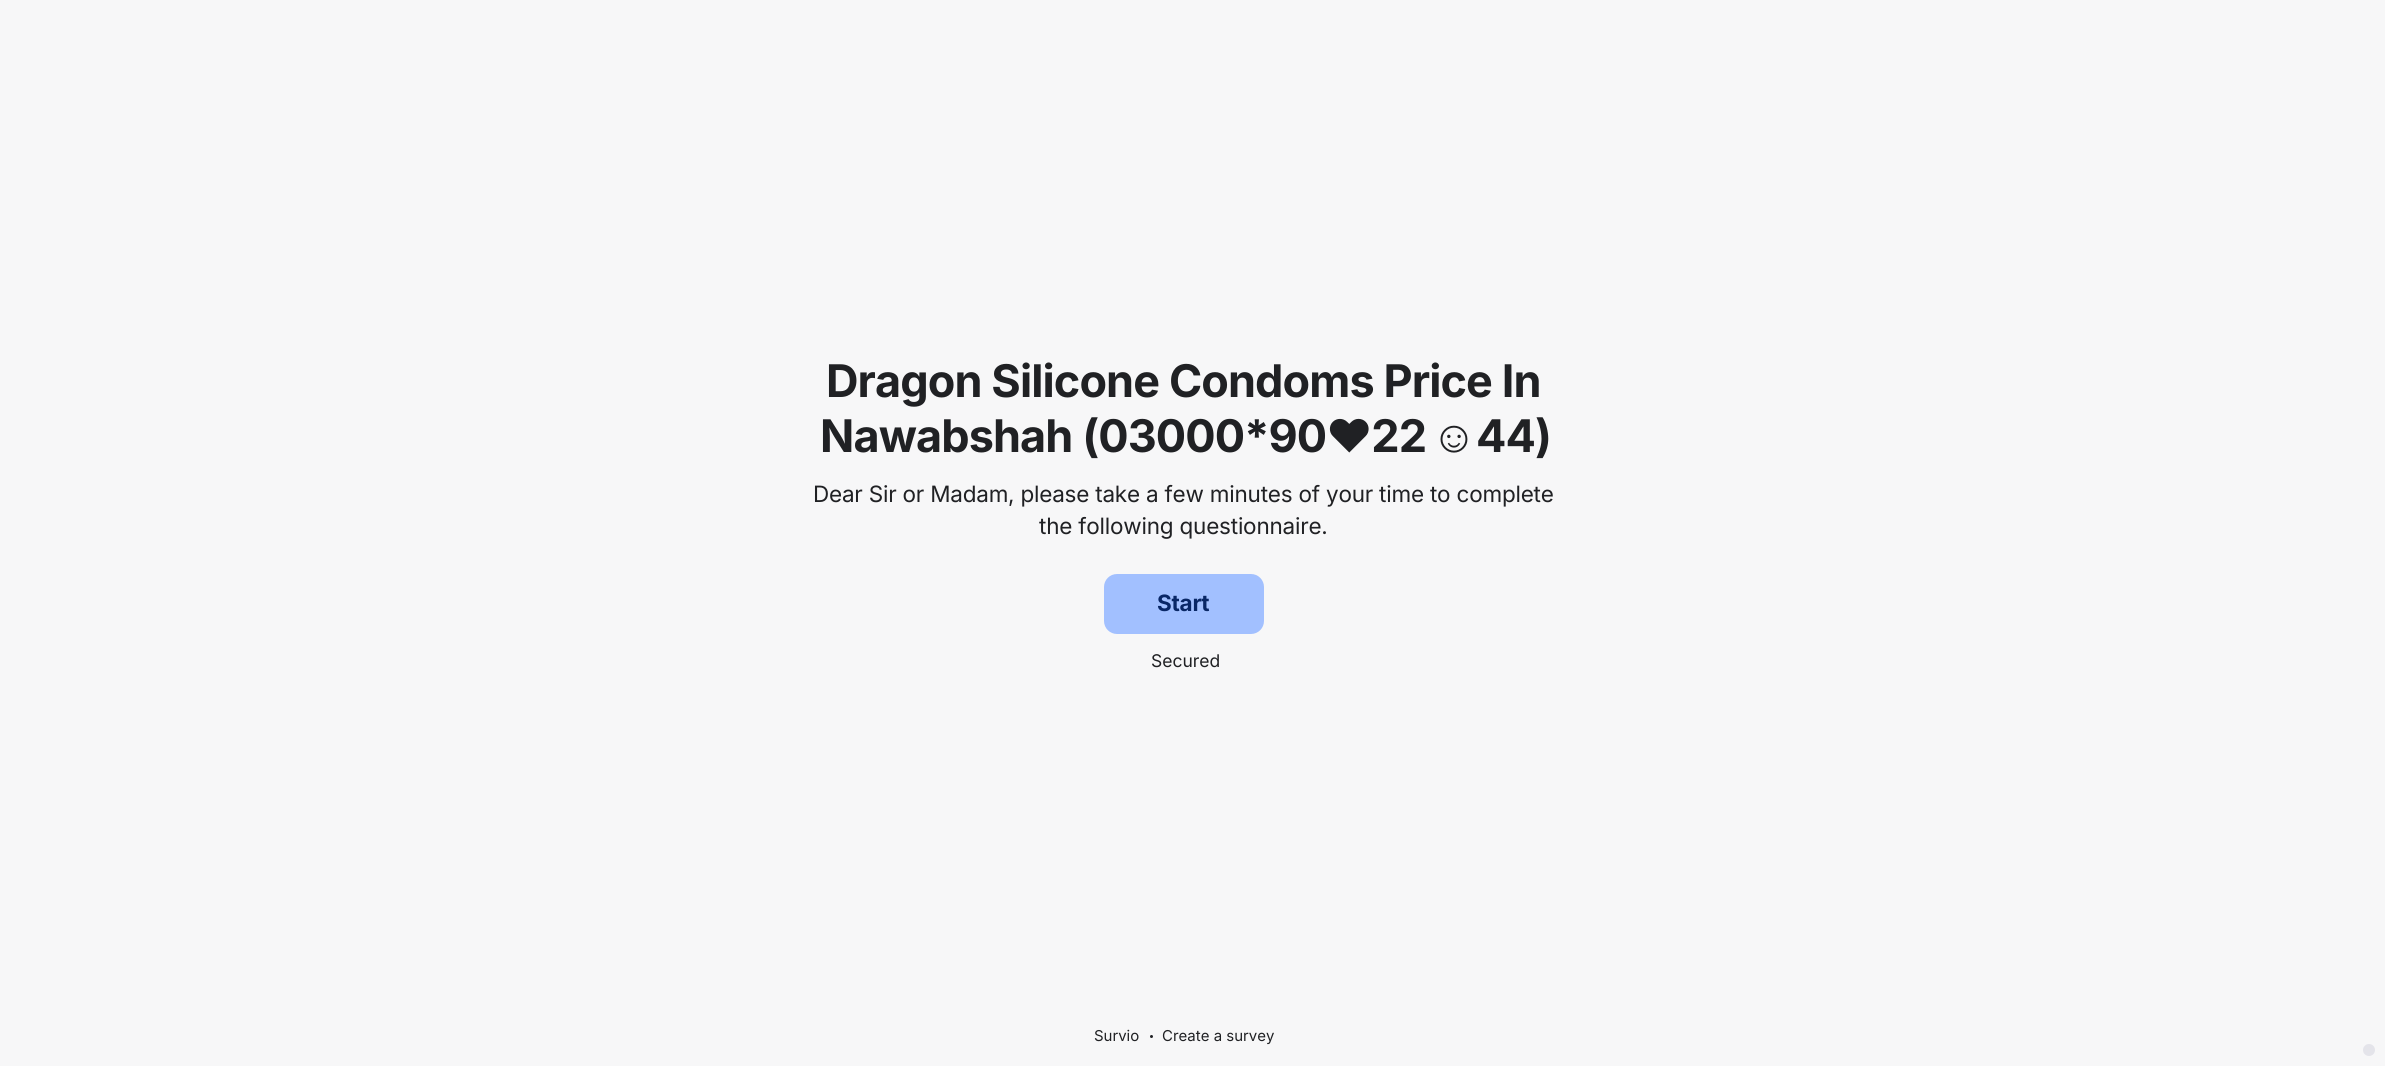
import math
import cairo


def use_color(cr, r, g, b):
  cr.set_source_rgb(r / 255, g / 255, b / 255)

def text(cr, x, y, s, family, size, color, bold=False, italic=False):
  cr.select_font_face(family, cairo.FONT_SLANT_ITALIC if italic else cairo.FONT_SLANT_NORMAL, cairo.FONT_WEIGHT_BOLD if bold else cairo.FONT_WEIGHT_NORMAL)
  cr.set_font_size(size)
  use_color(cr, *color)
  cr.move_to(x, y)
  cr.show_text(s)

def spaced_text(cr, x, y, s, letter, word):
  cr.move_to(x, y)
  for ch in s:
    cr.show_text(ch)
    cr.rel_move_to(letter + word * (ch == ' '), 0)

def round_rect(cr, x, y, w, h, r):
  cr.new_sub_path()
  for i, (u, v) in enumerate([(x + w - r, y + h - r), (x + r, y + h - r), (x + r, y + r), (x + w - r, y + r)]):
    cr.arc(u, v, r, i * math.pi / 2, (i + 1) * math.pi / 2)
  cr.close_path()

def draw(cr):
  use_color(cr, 247, 247, 248)
  cr.paint()
  use_color(cr, 162, 192, 255)
  round_rect(cr, 1104, 574, 160, 60, 13)
  cr.fill()
  use_color(cr, 32, 33, 36)
  cr.arc(1151.5, 1036.5, 1.5, 0, 2 * math.pi)
  cr.fill()
  use_color(cr, 228, 228, 234)
  cr.arc(2369, 1050, 6, 0, 2 * math.pi)
  cr.fill()
  cr.select_font_face("Inter", cairo.FONT_SLANT_NORMAL, cairo.FONT_WEIGHT_BOLD)
  cr.set_font_size(45)
  use_color(cr, 32, 33, 36)
  spaced_text(cr, 826, 397, "Dragon Silicone Condoms Price In", -0.9, 0)
  spaced_text(cr, 820, 452, "Nawabshah (03000*90♥22", -0.9, 0)
  cr.select_font_face("Liberation Sans", cairo.FONT_SLANT_NORMAL, cairo.FONT_WEIGHT_BOLD)
  spaced_text(cr, 1431, 452, "☺", -0.9, 0)
  cr.select_font_face("Inter", cairo.FONT_SLANT_NORMAL, cairo.FONT_WEIGHT_BOLD)
  spaced_text(cr, 1476, 452, "44)", -0.9, 0)
  cr.select_font_face("Inter")
  cr.set_font_size(22.5)
  spaced_text(cr, 813, 502, "Dear Sir or Madam, please take a few minutes of your time to complete", -0.22, 0)
  spaced_text(cr, 1039, 534, "the following questionnaire.", -0.22, 0)
  cr.select_font_face("Inter", cairo.FONT_SLANT_NORMAL, cairo.FONT_WEIGHT_BOLD)
  use_color(cr, 9, 39, 102)
  spaced_text(cr, 1157, 611, "Start", -0.22, 0)
  text(cr, 1151, 667, "Secured", "Inter", 17.5, (32, 33, 36))
  text(cr, 1094, 1041, "Survio", "Inter", 15, (32, 33, 36))
  text(cr, 1162, 1041, "Create a survey", "Inter", 15, (32, 33, 36))


surface = cairo.ImageSurface(cairo.FORMAT_RGB24, 2385, 1066)
cr = cairo.Context(surface)
options = cairo.FontOptions()
options.set_hint_metrics(cairo.HINT_METRICS_OFF)
options.set_hint_style(cairo.HINT_STYLE_NONE)
cr.set_font_options(options)
cr.set_miter_limit(4)
draw(cr)
surface.write_to_png("out.png")
